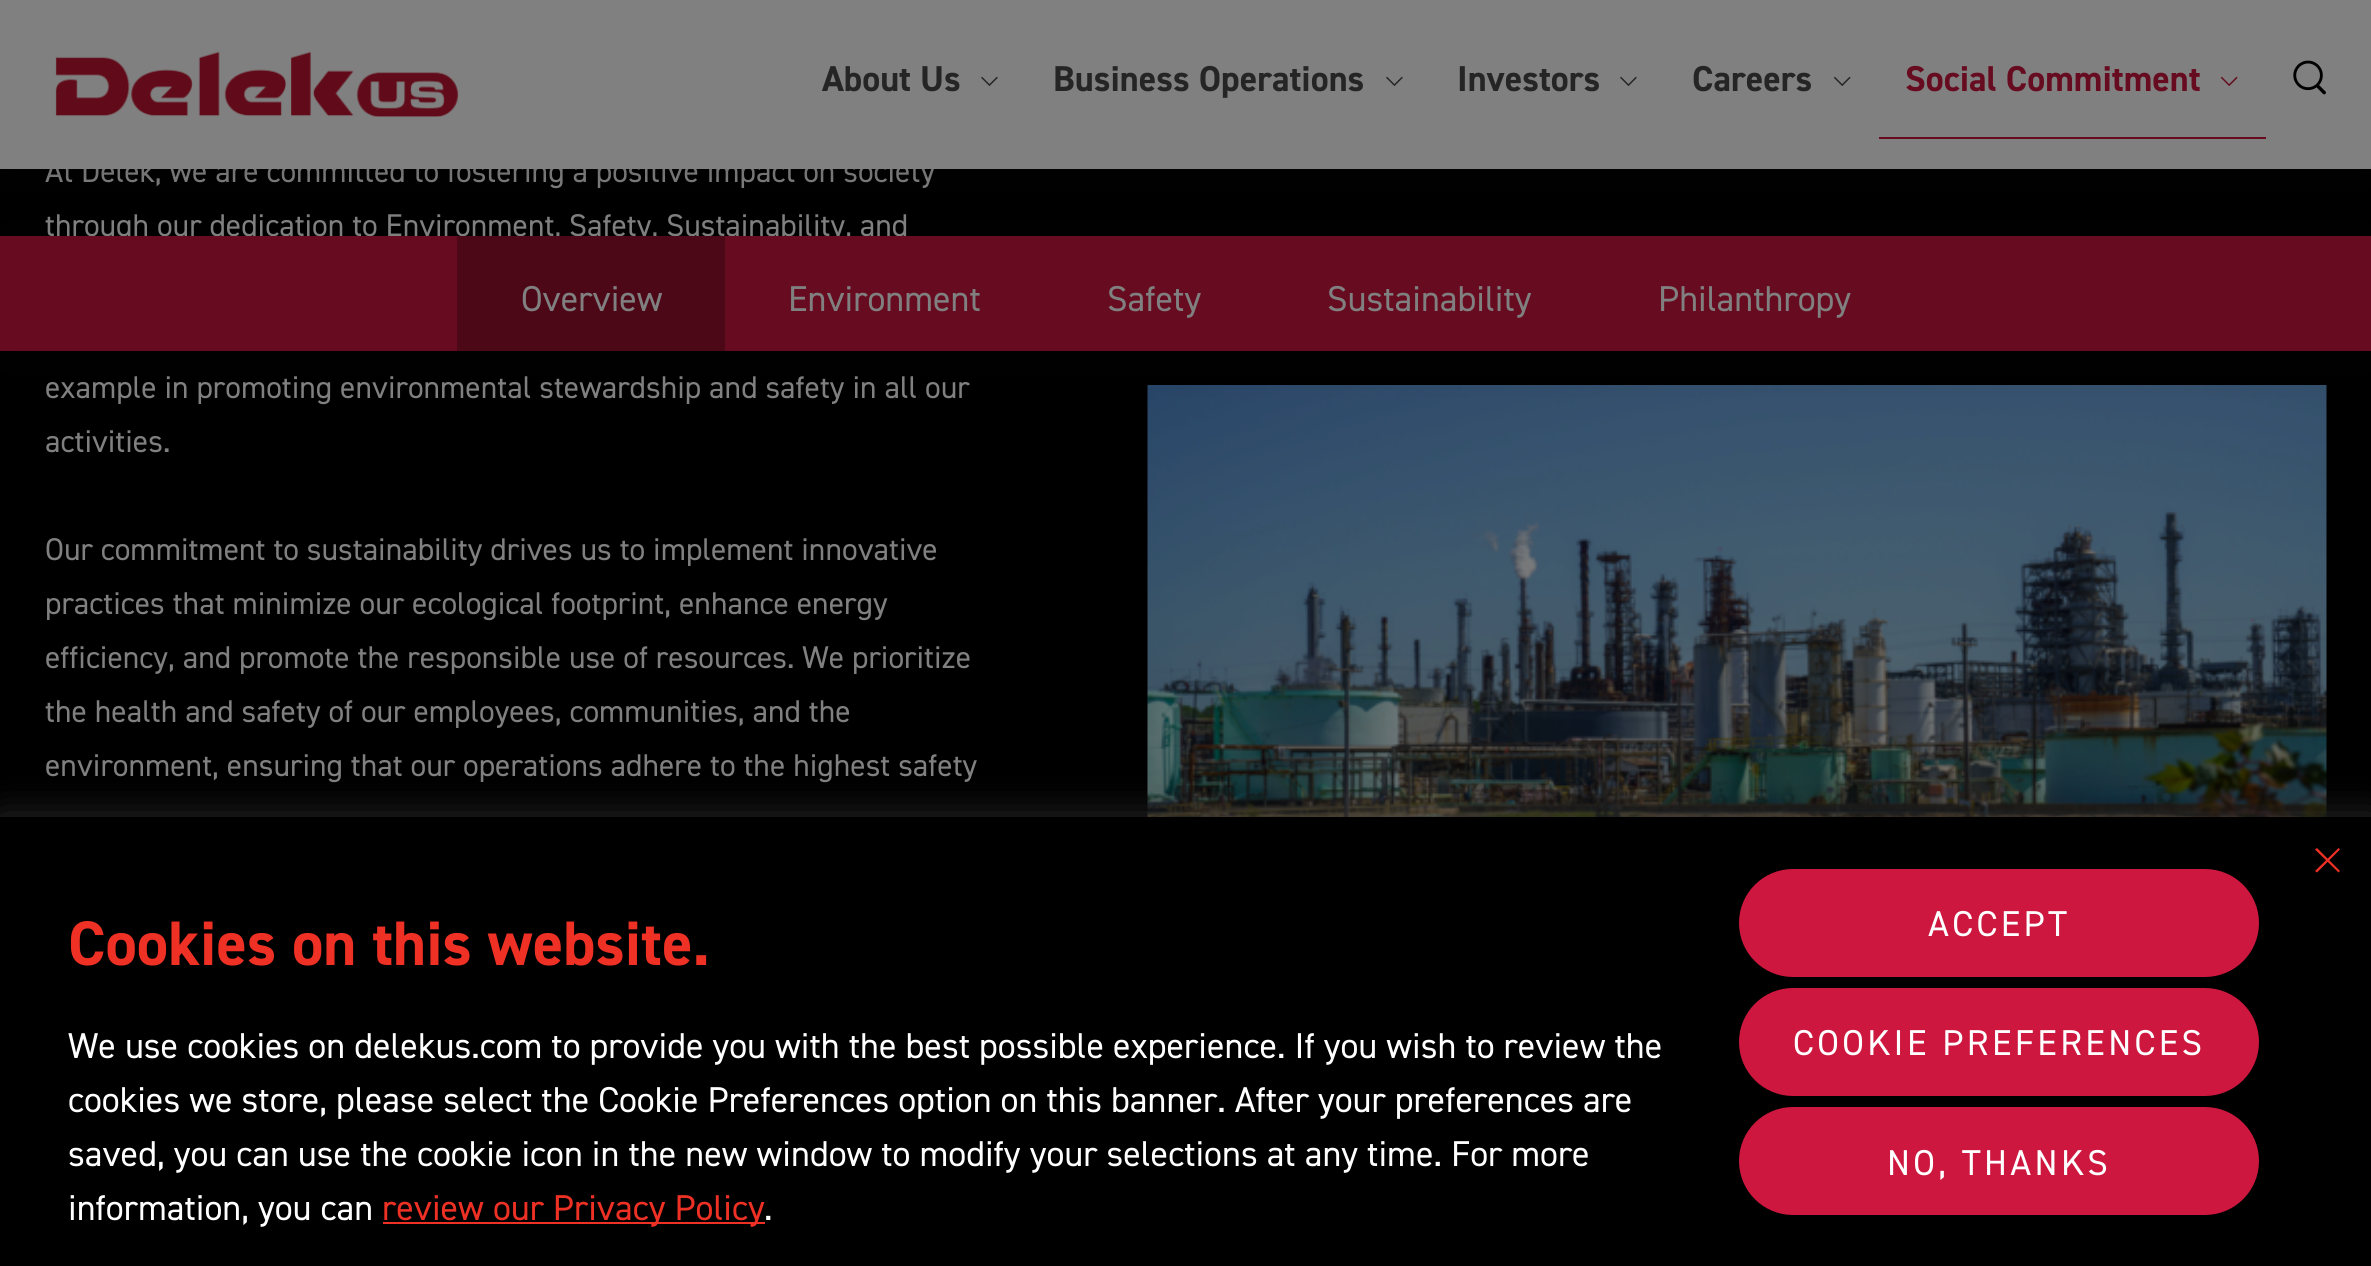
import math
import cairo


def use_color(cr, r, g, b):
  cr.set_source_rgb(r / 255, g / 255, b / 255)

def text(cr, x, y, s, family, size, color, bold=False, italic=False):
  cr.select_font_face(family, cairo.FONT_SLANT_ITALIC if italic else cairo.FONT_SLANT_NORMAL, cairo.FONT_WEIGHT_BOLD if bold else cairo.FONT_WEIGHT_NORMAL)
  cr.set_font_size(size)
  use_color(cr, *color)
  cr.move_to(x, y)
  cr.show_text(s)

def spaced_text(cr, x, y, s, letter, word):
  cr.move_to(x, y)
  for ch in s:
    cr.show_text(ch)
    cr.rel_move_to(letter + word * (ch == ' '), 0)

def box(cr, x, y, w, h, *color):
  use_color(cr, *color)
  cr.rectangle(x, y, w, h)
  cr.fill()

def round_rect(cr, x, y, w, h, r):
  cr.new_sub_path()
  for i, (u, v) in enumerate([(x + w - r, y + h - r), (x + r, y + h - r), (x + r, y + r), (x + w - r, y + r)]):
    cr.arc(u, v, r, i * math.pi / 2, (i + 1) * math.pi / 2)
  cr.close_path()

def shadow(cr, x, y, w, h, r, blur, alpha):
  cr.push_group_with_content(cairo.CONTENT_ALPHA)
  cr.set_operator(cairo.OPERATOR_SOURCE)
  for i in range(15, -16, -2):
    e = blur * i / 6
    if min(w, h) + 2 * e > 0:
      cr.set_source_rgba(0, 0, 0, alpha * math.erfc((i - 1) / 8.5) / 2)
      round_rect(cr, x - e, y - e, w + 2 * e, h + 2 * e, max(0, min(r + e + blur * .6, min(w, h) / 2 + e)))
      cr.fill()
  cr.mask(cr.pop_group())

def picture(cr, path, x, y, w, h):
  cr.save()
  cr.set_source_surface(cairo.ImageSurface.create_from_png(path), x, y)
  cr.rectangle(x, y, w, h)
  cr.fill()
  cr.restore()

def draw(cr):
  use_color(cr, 0, 0, 0)
  cr.paint()
  picture(cr, "img_06.png", 1147, 385, 1180, 432)
  use_color(cr, 15, 15, 15)
  shadow(cr, 0, 241, 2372, 115, 0, 22.5, 0.2)
  use_color(cr, 51, 51, 51)
  shadow(cr, 0, 821, 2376, 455, 0, 20, 1)
  box(cr, 0, 817, 2371, 449, 0, 0, 0)
  use_color(cr, 238, 49, 36)
  cr.new_path()
  cr.move_to(2338.5, 848)
  cr.line_to(2340, 849.5)
  cr.line_to(2317, 872.5)
  cr.line_to(2315, 871)
  cr.close_path()
  cr.fill()
  cr.new_path()
  cr.move_to(2315, 849.5)
  cr.line_to(2317, 848)
  cr.line_to(2340, 871)
  cr.line_to(2338.5, 872.5)
  cr.close_path()
  cr.fill()
  box(cr, 383, 1222, 382, 2, 238, 49, 36)
  use_color(cr, 205, 23, 63)
  round_rect(cr, 1740, 870, 518, 106, 53)
  cr.fill_preserve()
  cr.stroke()
  round_rect(cr, 1740, 989, 518, 106, 53)
  cr.fill_preserve()
  cr.stroke()
  round_rect(cr, 1740, 1108, 518, 106, 53)
  cr.fill_preserve()
  cr.stroke()
  text(cr, 45, 182, "At Delek, we are committed to fostering a positive impact on society", "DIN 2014", 31.5, (128, 128, 128))
  text(cr, 45, 236, "through our dedication to Environment, Safety, Sustainability, and", "DIN 2014", 31.5, (128, 128, 128))
  text(cr, 45, 398, "example in promoting environmental stewardship and safety in all our", "DIN 2014", 31.5, (128, 128, 128))
  text(cr, 45, 452, "activities.", "DIN 2014", 31.5, (128, 128, 128))
  text(cr, 45, 560, "Our commitment to sustainability drives us to implement innovative", "DIN 2014", 31.5, (128, 128, 128))
  text(cr, 45, 614, "practices that minimize our ecological footprint, enhance energy", "DIN 2014", 31.5, (128, 128, 128))
  text(cr, 45, 668, "efficiency, and promote the responsible use of resources. We prioritize", "DIN 2014", 31.5, (128, 128, 128))
  text(cr, 45, 722, "the health and safety of our employees, communities, and the", "DIN 2014", 31.5, (128, 128, 128))
  text(cr, 45, 776, "environment, ensuring that our operations adhere to the highest safety", "DIN 2014", 31.5, (128, 128, 128))
  box(cr, 0, 236, 2371, 115, 103, 12, 32)
  box(cr, 457, 236, 268, 115, 77, 8, 24)
  use_color(cr, 15, 15, 15)
  shadow(cr, 0, 5, 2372, 168, 0, 22.5, 0.2)
  box(cr, 0, 0, 2371, 169, 128, 128, 128)
  picture(cr, "img_05.png", 2293, 60, 33, 35)
  picture(cr, "img_04.png", 2220, 76, 18, 11)
  text(cr, 1905, 91, "Social Commitment", "DIN 2014", 36, (103, 12, 32), bold=True)
  box(cr, 1879, 137, 387, 2, 103, 12, 32)
  picture(cr, "img_03.png", 1833, 76, 18, 11)
  text(cr, 1692, 91, "Careers", "DIN 2014", 36, (37, 37, 37), bold=True)
  picture(cr, "img_02.png", 1620, 76, 17, 11)
  text(cr, 1457, 91, "Investors", "DIN 2014", 36, (37, 37, 37), bold=True)
  picture(cr, "img_02.png", 1386, 76, 17, 11)
  text(cr, 1053, 91, "Business Operations", "DIN 2014", 36, (37, 37, 37), bold=True)
  picture(cr, "img_02.png", 981, 76, 17, 11)
  text(cr, 822, 91, "About Us", "DIN 2014", 36, (37, 37, 37), bold=True)
  picture(cr, "img_01.png", 55, 51, 404, 66)
  text(cr, 521, 311, "Overview", "DIN 2014", 36, (128, 128, 128))
  text(cr, 788, 311, "Environment", "DIN 2014", 36, (128, 128, 128))
  text(cr, 1107, 311, "Safety", "DIN 2014", 36, (128, 128, 128))
  text(cr, 1327, 311, "Sustainability", "DIN 2014", 36, (128, 128, 128))
  text(cr, 1658, 311, "Philanthropy", "DIN 2014", 36, (128, 128, 128))
  text(cr, 68, 965, "Cookies on this website.", "DIN 2014", 63, (238, 49, 36), bold=True)
  text(cr, 68, 1058, "We use cookies on delekus.com to provide you with the best possible experience. If you wish to review the", "DIN 2014", 36, (255, 255, 255))
  text(cr, 68, 1112, "cookies we store, please select the Cookie Preferences option on this banner. After your preferences are", "DIN 2014", 36, (255, 255, 255))
  text(cr, 68, 1166, "saved, you can use the cookie icon in the new window to modify your selections at any time. For more", "DIN 2014", 36, (255, 255, 255))
  text(cr, 68, 1220, "information, you can", "DIN 2014", 36, (255, 255, 255))
  text(cr, 382, 1220, "review our Privacy Policy", "DIN 2014", 36, (238, 49, 36))
  text(cr, 764, 1220, ".", "DIN 2014", 36, (255, 255, 255))
  spaced_text(cr, 1928, 936, "ACCEPT", 3.4, 0)
  spaced_text(cr, 1793, 1055, "COOKIE PREFERENCES", 3.4, 0)
  spaced_text(cr, 1887, 1175, "NO, THANKS", 3.4, 0)


surface = cairo.ImageSurface(cairo.FORMAT_RGB24, 2371, 1266)
cr = cairo.Context(surface)
options = cairo.FontOptions()
options.set_hint_metrics(cairo.HINT_METRICS_OFF)
options.set_hint_style(cairo.HINT_STYLE_NONE)
cr.set_font_options(options)
cr.set_miter_limit(4)
draw(cr)
surface.write_to_png("out.png")
